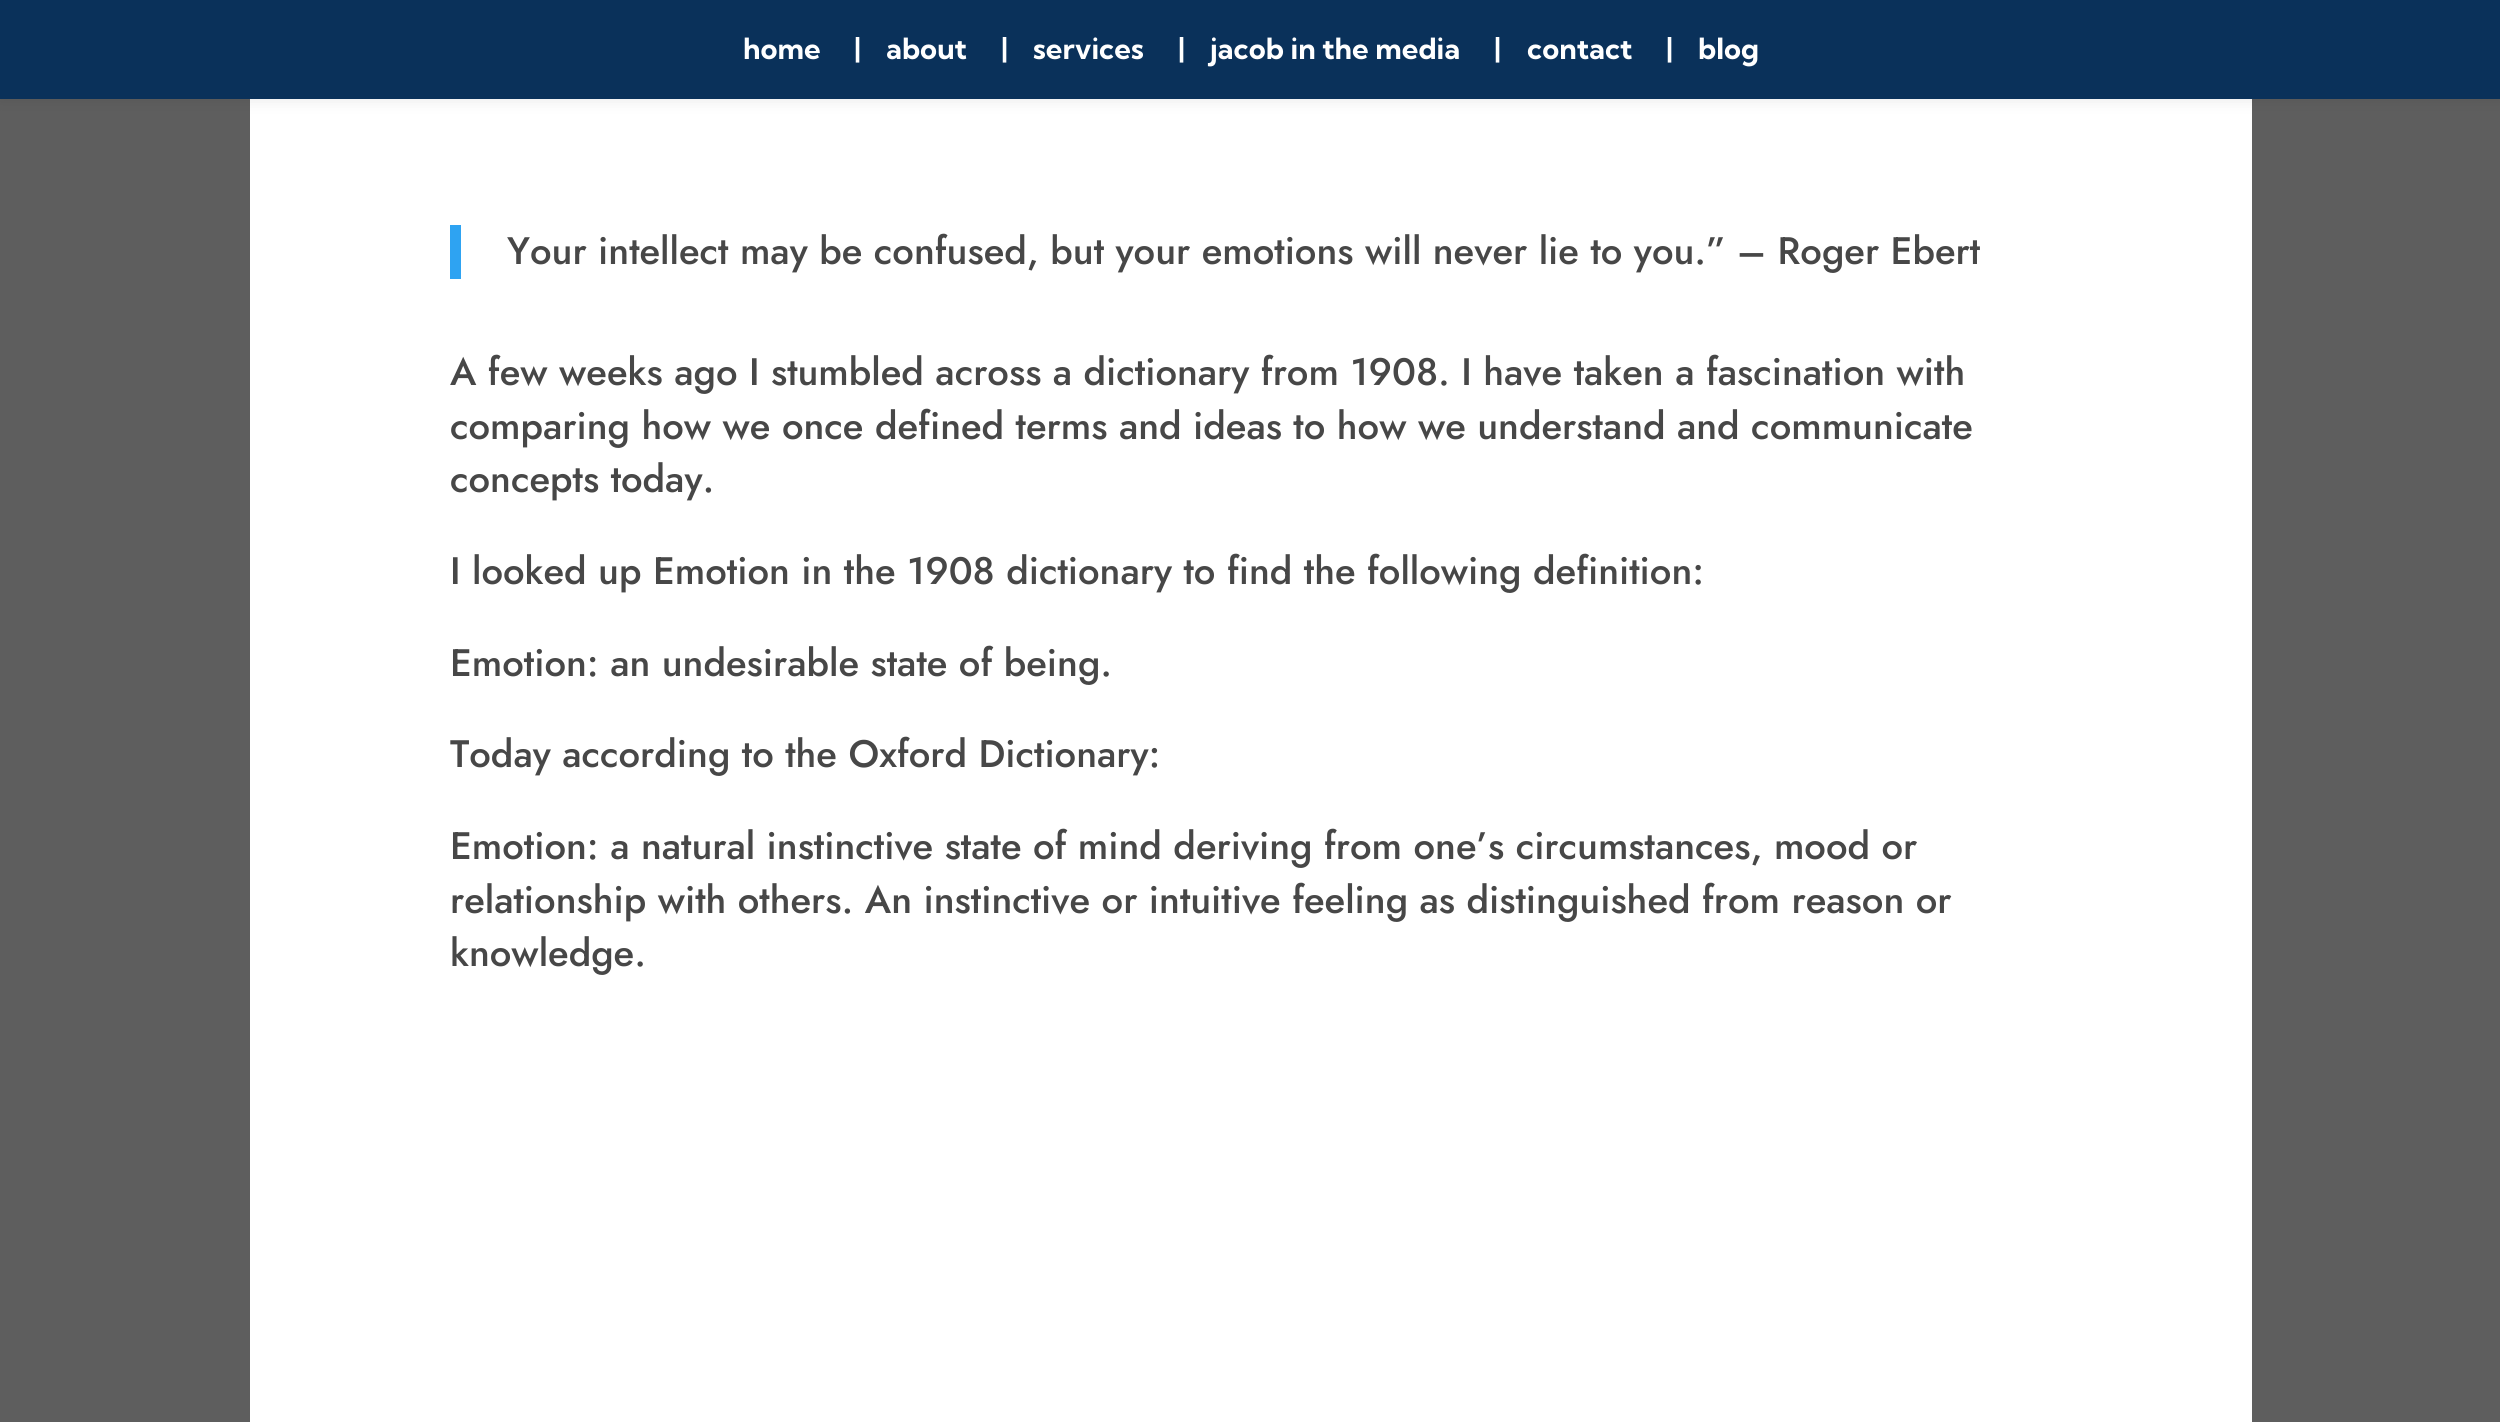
import math
import cairo


def use_color(cr, r, g, b):
  cr.set_source_rgb(r / 255, g / 255, b / 255)

def text(cr, x, y, s, family, size, color, bold=False, italic=False):
  cr.select_font_face(family, cairo.FONT_SLANT_ITALIC if italic else cairo.FONT_SLANT_NORMAL, cairo.FONT_WEIGHT_BOLD if bold else cairo.FONT_WEIGHT_NORMAL)
  cr.set_font_size(size)
  use_color(cr, *color)
  cr.move_to(x, y)
  cr.show_text(s)

def box(cr, x, y, w, h, *color):
  use_color(cr, *color)
  cr.rectangle(x, y, w, h)
  cr.fill()

def round_rect(cr, x, y, w, h, r):
  cr.new_sub_path()
  for i, (u, v) in enumerate([(x + w - r, y + h - r), (x + r, y + h - r), (x + r, y + r), (x + w - r, y + r)]):
    cr.arc(u, v, r, i * math.pi / 2, (i + 1) * math.pi / 2)
  cr.close_path()

def shadow(cr, x, y, w, h, r, blur, alpha):
  cr.push_group_with_content(cairo.CONTENT_ALPHA)
  cr.set_operator(cairo.OPERATOR_SOURCE)
  for i in range(15, -16, -2):
    e = blur * i / 6
    if min(w, h) + 2 * e > 0:
      cr.set_source_rgba(0, 0, 0, alpha * math.erfc((i - 1) / 8.5) / 2)
      round_rect(cr, x - e, y - e, w + 2 * e, h + 2 * e, max(0, min(r + e + blur * .6, min(w, h) / 2 + e)))
      cr.fill()
  cr.mask(cr.pop_group())

def draw(cr):
  use_color(cr, 94, 94, 94)
  cr.paint()
  box(cr, 250, 99, 2002, 1323, 255, 255, 255)
  use_color(cr, 0, 0, 0)
  shadow(cr, 0, 0, 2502, 99, 0, 8, 0.1)
  box(cr, 0, 0, 2500, 99, 10, 49, 90)
  box(cr, 450, 225, 11, 54, 46, 163, 242)
  text(cr, 743, 59, "home", "Kumbh Sans", 29.25, (255, 255, 255), bold=True)
  text(cr, 854, 59, "|", "Kumbh Sans", 29.25, (255, 255, 255), bold=True)
  text(cr, 886, 59, "about", "Kumbh Sans", 29.25, (255, 255, 255), bold=True)
  text(cr, 1001, 59, "|", "Kumbh Sans", 29.25, (255, 255, 255), bold=True)
  text(cr, 1033, 59, "services", "Kumbh Sans", 29.25, (255, 255, 255), bold=True)
  text(cr, 1178, 59, "|", "Kumbh Sans", 29.25, (255, 255, 255), bold=True)
  text(cr, 1210, 59, "jacob in the media", "Kumbh Sans", 29.25, (255, 255, 255), bold=True)
  text(cr, 1494, 59, "|", "Kumbh Sans", 29.25, (255, 255, 255), bold=True)
  text(cr, 1527, 59, "contact", "Kumbh Sans", 29.25, (255, 255, 255), bold=True)
  text(cr, 1666, 59, "|", "Kumbh Sans", 29.25, (255, 255, 255), bold=True)
  text(cr, 1698, 59, "blog", "Kumbh Sans", 29.25, (255, 255, 255), bold=True)
  text(cr, 507, 264, "Your intellect may be confused, but your emotions will never lie to you.” – Roger Ebert", "Jost Medium", 38.25, (71, 71, 71))
  text(cr, 450, 385, "A few weeks ago I stumbled across a dictionary from 1908. I have taken a fascination with", "Jost Medium", 38.25, (71, 71, 71))
  text(cr, 450, 439, "comparing how we once defined terms and ideas to how we understand and communicate", "Jost Medium", 38.25, (71, 71, 71))
  text(cr, 450, 492, "concepts today.", "Jost Medium", 38.25, (71, 71, 71))
  text(cr, 450, 584, "I looked up Emotion in the 1908 dictionary to find the following definition:", "Jost Medium", 38.25, (71, 71, 71))
  text(cr, 450, 676, "Emotion: an undesirable state of being.", "Jost Medium", 38.25, (71, 71, 71))
  text(cr, 450, 767, "Today according to the Oxford Dictionary:", "Jost Medium", 38.25, (71, 71, 71))
  text(cr, 450, 859, "Emotion: a natural instinctive state of mind deriving from one’s circumstances, mood or", "Jost Medium", 38.25, (71, 71, 71))
  text(cr, 450, 913, "relationship with others. An instinctive or intuitive feeling as distinguished from reason or", "Jost Medium", 38.25, (71, 71, 71))
  text(cr, 450, 966, "knowledge.", "Jost Medium", 38.25, (71, 71, 71))


surface = cairo.ImageSurface(cairo.FORMAT_RGB24, 2500, 1422)
cr = cairo.Context(surface)
options = cairo.FontOptions()
options.set_hint_metrics(cairo.HINT_METRICS_OFF)
options.set_hint_style(cairo.HINT_STYLE_NONE)
cr.set_font_options(options)
cr.set_miter_limit(4)
draw(cr)
surface.write_to_png("out.png")
